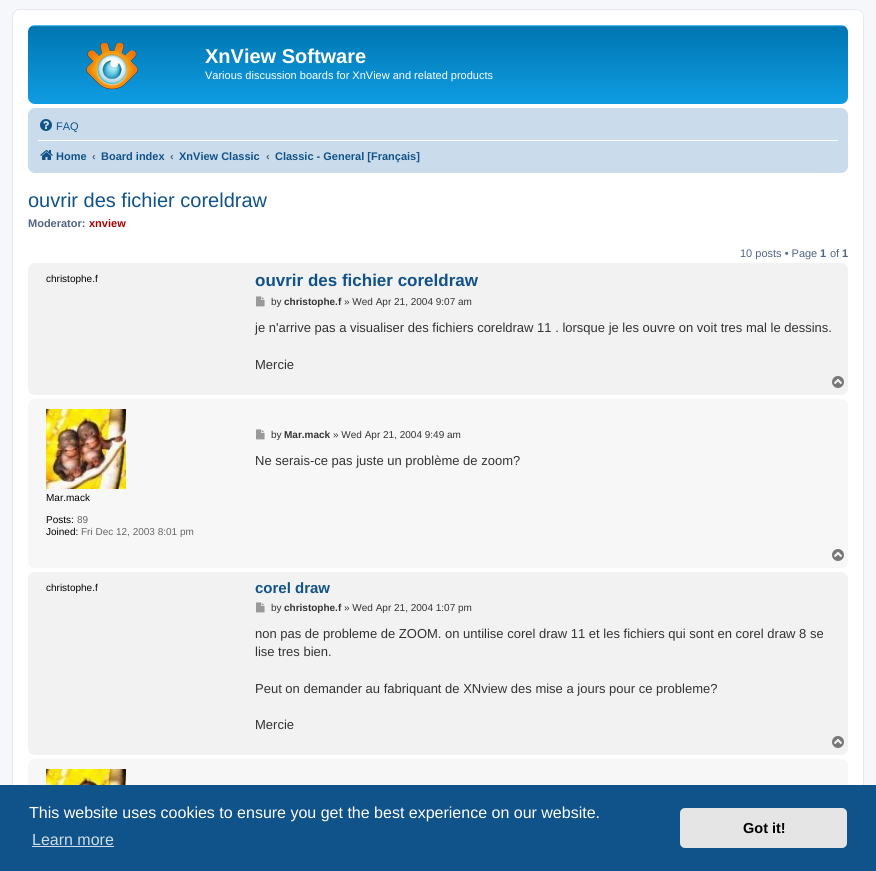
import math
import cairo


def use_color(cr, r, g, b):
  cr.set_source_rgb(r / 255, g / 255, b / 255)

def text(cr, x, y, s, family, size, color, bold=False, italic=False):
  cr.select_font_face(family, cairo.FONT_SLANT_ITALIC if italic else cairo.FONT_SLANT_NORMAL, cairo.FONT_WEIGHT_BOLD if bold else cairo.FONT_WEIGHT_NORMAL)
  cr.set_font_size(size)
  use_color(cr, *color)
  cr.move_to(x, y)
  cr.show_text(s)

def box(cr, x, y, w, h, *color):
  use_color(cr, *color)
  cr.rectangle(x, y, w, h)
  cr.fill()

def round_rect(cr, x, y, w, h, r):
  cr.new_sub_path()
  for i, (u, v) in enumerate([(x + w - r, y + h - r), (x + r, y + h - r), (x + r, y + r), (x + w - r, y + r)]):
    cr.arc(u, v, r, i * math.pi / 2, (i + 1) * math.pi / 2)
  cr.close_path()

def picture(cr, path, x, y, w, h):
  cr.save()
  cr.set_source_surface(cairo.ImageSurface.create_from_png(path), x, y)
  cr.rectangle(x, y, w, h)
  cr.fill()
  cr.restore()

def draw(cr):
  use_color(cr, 245, 247, 250)
  cr.paint()
  use_color(cr, 255, 255, 255)
  round_rect(cr, 12.5, 9.5, 851, 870, 7.5)
  cr.fill_preserve()
  use_color(cr, 230, 233, 237)
  cr.set_line_width(1)
  cr.stroke()
  gradient = cairo.LinearGradient(438, 25, 438, 117)
  gradient.add_color_stop_rgba(0, 0.416, 0.808, 1, 1)
  gradient.add_color_stop_rgba(0.02, 0, 0.463, 0.694, 1)
  gradient.add_color_stop_rgba(1, 0.071, 0.639, 0.922, 1)
  cr.set_source(gradient)
  round_rect(cr, 28, 25, 820, 79, 7)
  cr.fill()
  picture(cr, "img_01.png", 86, 42, 52, 48)
  use_color(cr, 202, 220, 235)
  round_rect(cr, 28, 108, 820, 65, 7)
  cr.fill()
  picture(cr, "img_02.png", 40, 119, 12, 12)
  box(cr, 38, 140, 800, 1, 255, 255, 255)
  picture(cr, "img_03.png", 40, 150, 13, 10)
  use_color(cr, 242, 242, 242)
  round_rect(cr, 28, 263, 820, 132, 7)
  cr.fill()
  picture(cr, "img_04.png", 256, 296, 9, 11)
  picture(cr, "img_05.png", 832, 376, 12, 12)
  use_color(cr, 247, 247, 247)
  round_rect(cr, 28, 399, 820, 169, 7)
  cr.fill()
  picture(cr, "img_06.png", 256, 429, 9, 11)
  picture(cr, "img_07.png", 46, 409, 80, 80)
  picture(cr, "img_08.png", 832, 549, 12, 12)
  use_color(cr, 242, 242, 242)
  round_rect(cr, 28, 572, 820, 183, 7)
  cr.fill()
  picture(cr, "img_04.png", 256, 602, 9, 11)
  picture(cr, "img_05.png", 832, 736, 12, 12)
  use_color(cr, 247, 247, 247)
  round_rect(cr, 28, 759, 820, 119, 7)
  cr.fill()
  picture(cr, "img_09.png", 46, 769, 80, 16)
  box(cr, 0, 785, 876, 86, 15, 83, 138)
  box(cr, 32, 846, 82, 1, 207, 221, 232)
  use_color(cr, 229, 229, 229)
  round_rect(cr, 680, 808, 167, 40, 5)
  cr.fill()
  text(cr, 205, 63, "XnView Software", "Liberation Sans", 20, (255, 255, 255), bold=True)
  text(cr, 205, 79, "Various discussion boards for XnView and related products", "Liberation Sans", 11, (255, 255, 255))
  text(cr, 56, 130, "FAQ", "Liberation Sans", 11, (16, 82, 137))
  text(cr, 56, 160, "Home", "Liberation Sans", 11, (16, 82, 137), bold=True)
  text(cr, 92, 160, "‹", "Liberation Sans", 11, (83, 100, 130), bold=True)
  text(cr, 101, 160, "Board index", "Liberation Sans", 11, (16, 82, 137), bold=True)
  text(cr, 170, 160, "‹", "Liberation Sans", 11, (83, 100, 130), bold=True)
  text(cr, 179, 160, "XnView Classic", "Liberation Sans", 11, (16, 82, 137), bold=True)
  text(cr, 266, 160, "‹", "Liberation Sans", 11, (83, 100, 130), bold=True)
  text(cr, 275, 160, "Classic - General [Français]", "Liberation Sans", 11, (16, 82, 137), bold=True)
  text(cr, 28, 207, "ouvrir des fichier coreldraw", "Liberation Sans", 20, (16, 82, 137))
  text(cr, 28, 227, "Moderator:", "Liberation Sans", 11, (83, 100, 130), bold=True)
  text(cr, 89, 227, "xnview", "Liberation Sans", 11, (170, 0, 0), bold=True)
  text(cr, 740, 257, "10 posts • Page", "Liberation Sans", 11, (83, 100, 130))
  text(cr, 820, 257, "1", "Liberation Sans", 11, (83, 100, 130), bold=True)
  text(cr, 830, 257, "of", "Liberation Sans", 11, (83, 100, 130))
  text(cr, 842, 257, "1", "Liberation Sans", 11, (83, 100, 130), bold=True)
  text(cr, 46, 282, "christophe.f", "Liberation Sans", 10, (0, 0, 0))
  text(cr, 255, 286, "ouvrir des fichier coreldraw", "Liberation Sans", 17, (16, 82, 137), bold=True)
  text(cr, 271, 305, "by", "Liberation Sans", 10, (51, 51, 51))
  text(cr, 284, 305, "christophe.f", "Liberation Sans", 10, (51, 51, 51), bold=True)
  text(cr, 344, 305, "» Wed Apr 21, 2004 9:07 am", "Liberation Sans", 10, (51, 51, 51))
  text(cr, 255, 332, "je n'arrive pas a visualiser des fichiers coreldraw 11 . lorsque je les ouvre on voit tres mal le dessins.", "Liberation Sans", 13, (51, 51, 51))
  text(cr, 255, 369, "Mercie", "Liberation Sans", 13, (51, 51, 51))
  text(cr, 271, 438, "by", "Liberation Sans", 10, (51, 51, 51))
  text(cr, 284, 438, "Mar.mack", "Liberation Sans", 10, (51, 51, 51), bold=True)
  text(cr, 333, 438, "» Wed Apr 21, 2004 9:49 am", "Liberation Sans", 10, (51, 51, 51))
  text(cr, 255, 465, "Ne serais-ce pas juste un problème de zoom?", "Liberation Sans", 13, (51, 51, 51))
  text(cr, 46, 501, "Mar.mack", "Liberation Sans", 10, (0, 0, 0))
  text(cr, 46, 523, "Posts:", "Liberation Sans", 10, (0, 0, 0))
  text(cr, 77, 523, "89", "Liberation Sans", 10, (102, 102, 102))
  text(cr, 46, 535, "Joined:", "Liberation Sans", 10, (0, 0, 0))
  text(cr, 81, 535, "Fri Dec 12, 2003 8:01 pm", "Liberation Sans", 10, (102, 102, 102))
  text(cr, 46, 591, "christophe.f", "Liberation Sans", 10, (0, 0, 0))
  text(cr, 255, 593, "corel draw", "Liberation Sans", 15, (16, 82, 137), bold=True)
  text(cr, 271, 611, "by", "Liberation Sans", 10, (51, 51, 51))
  text(cr, 284, 611, "christophe.f", "Liberation Sans", 10, (51, 51, 51), bold=True)
  text(cr, 344, 611, "» Wed Apr 21, 2004 1:07 pm", "Liberation Sans", 10, (51, 51, 51))
  text(cr, 255, 638, "non pas de probleme de ZOOM. on untilise corel draw 11 et les fichiers qui sont en corel draw 8 se", "Liberation Sans", 13, (51, 51, 51))
  text(cr, 255, 656, "lise tres bien.", "Liberation Sans", 13, (51, 51, 51))
  text(cr, 255, 693, "Peut on demander au fabriquant de XNview des mise a jours pour ce probleme?", "Liberation Sans", 13, (51, 51, 51))
  text(cr, 255, 729, "Mercie", "Liberation Sans", 13, (51, 51, 51))
  text(cr, 29, 818, "This website uses cookies to ensure you get the best experience on our website.", "Liberation Sans", 16, (255, 255, 255))
  text(cr, 32, 845, "Learn more", "Liberation Sans", 16, (207, 221, 232))
  text(cr, 743, 833, "Got it!", "Liberation Sans", 14.5, (0, 0, 0), bold=True)


surface = cairo.ImageSurface(cairo.FORMAT_RGB24, 876, 871)
cr = cairo.Context(surface)
options = cairo.FontOptions()
options.set_hint_metrics(cairo.HINT_METRICS_OFF)
options.set_hint_style(cairo.HINT_STYLE_NONE)
cr.set_font_options(options)
cr.set_miter_limit(4)
draw(cr)
surface.write_to_png("out.png")
